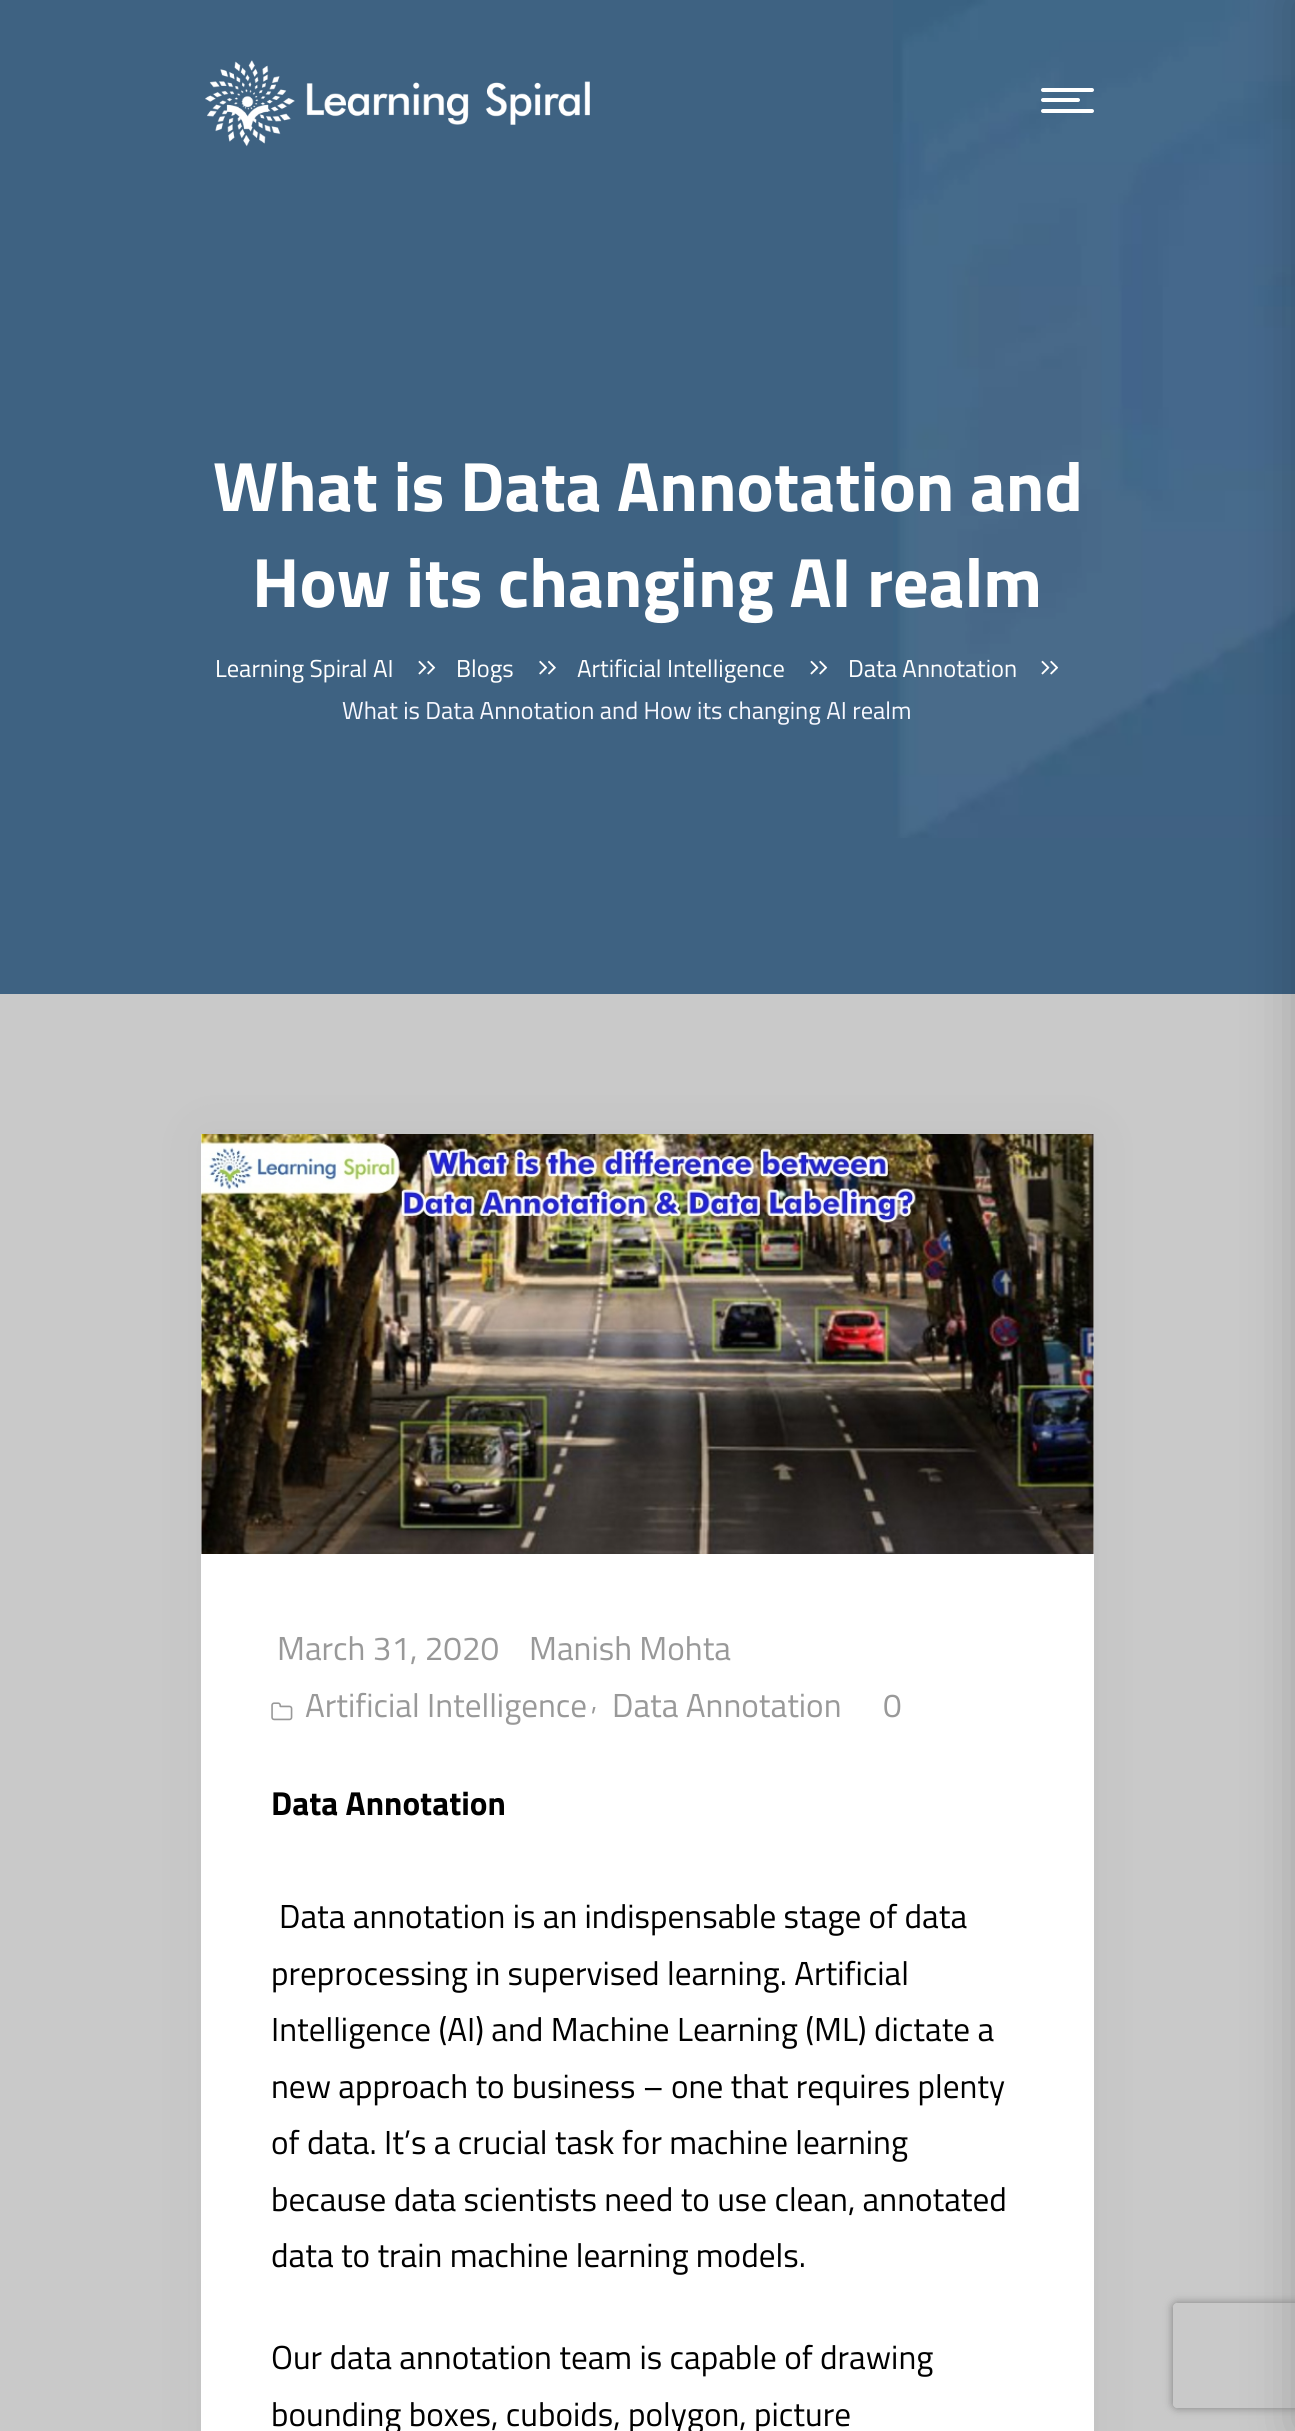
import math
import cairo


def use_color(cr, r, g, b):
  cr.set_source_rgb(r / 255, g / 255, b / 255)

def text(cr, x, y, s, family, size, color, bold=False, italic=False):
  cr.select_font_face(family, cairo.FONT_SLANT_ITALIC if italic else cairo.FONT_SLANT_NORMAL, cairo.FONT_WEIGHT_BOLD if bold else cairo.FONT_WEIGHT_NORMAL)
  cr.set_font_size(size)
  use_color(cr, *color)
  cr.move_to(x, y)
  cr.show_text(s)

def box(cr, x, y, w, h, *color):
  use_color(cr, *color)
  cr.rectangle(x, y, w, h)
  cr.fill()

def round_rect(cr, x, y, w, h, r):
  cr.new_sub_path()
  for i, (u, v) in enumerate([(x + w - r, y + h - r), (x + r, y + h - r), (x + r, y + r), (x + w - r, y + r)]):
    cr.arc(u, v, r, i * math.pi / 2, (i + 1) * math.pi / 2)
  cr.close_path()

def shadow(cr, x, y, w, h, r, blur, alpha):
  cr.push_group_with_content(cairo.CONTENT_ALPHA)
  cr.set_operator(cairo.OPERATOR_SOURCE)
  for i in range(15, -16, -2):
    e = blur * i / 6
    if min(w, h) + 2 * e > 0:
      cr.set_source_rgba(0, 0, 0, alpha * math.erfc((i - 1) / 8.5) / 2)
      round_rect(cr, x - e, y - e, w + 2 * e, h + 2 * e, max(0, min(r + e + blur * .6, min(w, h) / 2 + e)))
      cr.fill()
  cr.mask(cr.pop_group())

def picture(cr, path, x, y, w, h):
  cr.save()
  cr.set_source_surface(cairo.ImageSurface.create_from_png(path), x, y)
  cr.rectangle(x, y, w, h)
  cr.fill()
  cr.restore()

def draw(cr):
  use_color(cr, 201, 201, 201)
  cr.paint()
  box(cr, 0, 0, 1295, 994, 62, 98, 130)
  picture(cr, "img_01.png", 205, 60, 385, 87)
  picture(cr, "img_02.png", 893, 0, 402, 838)
  use_color(cr, 255, 255, 255)
  round_rect(cr, 1041, 88, 53, 4, 2)
  cr.fill()
  round_rect(cr, 1041, 98, 39, 4, 2)
  cr.fill()
  round_rect(cr, 1041, 109, 53, 4, 2)
  cr.fill()
  picture(cr, "img_03.png", 418, 660, 9, 15)
  picture(cr, "img_04.png", 427, 660, 9, 15)
  picture(cr, "img_04.png", 539, 660, 9, 15)
  picture(cr, "img_05.png", 548, 660, 8, 15)
  picture(cr, "img_03.png", 810, 660, 9, 15)
  picture(cr, "img_04.png", 819, 660, 9, 15)
  picture(cr, "img_06.png", 1041, 660, 9, 15)
  picture(cr, "img_07.png", 1050, 660, 9, 15)
  use_color(cr, 0, 0, 0)
  shadow(cr, 1295, -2, 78, 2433, 0, 26, 0.2)
  shadow(cr, 201, 1134, 893, 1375, 0, 26, 0.05)
  box(cr, 201, 1134, 893, 1297, 255, 255, 255)
  picture(cr, "img_08.png", 201, 1134, 893, 420)
  picture(cr, "img_09.png", 271, 1702, 22, 19)
  cr.save()
  cr.set_fill_rule(cairo.FILL_RULE_EVEN_ODD)
  cr.new_path()
  cr.move_to(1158, 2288)
  cr.line_to(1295, 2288)
  cr.line_to(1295, 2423)
  cr.line_to(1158, 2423)
  cr.close_path()
  cr.move_to(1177, 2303)
  cr.line_to(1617, 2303)
  cr.curve_to(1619, 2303, 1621, 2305, 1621, 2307)
  cr.line_to(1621, 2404)
  cr.curve_to(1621, 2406, 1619, 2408, 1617, 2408)
  cr.line_to(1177, 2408)
  cr.curve_to(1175, 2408, 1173, 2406, 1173, 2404)
  cr.line_to(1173, 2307)
  cr.curve_to(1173, 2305, 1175, 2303, 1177, 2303)
  cr.close_path()
  cr.clip()
  use_color(cr, 128, 128, 128)
  shadow(cr, 1173, 2303, 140, 105, 4, 4.5, 1)
  cr.restore()
  text(cr, 213, 511, "What is Data Annotation and", "Titillium Web", 70, (255, 255, 255), bold=True)
  text(cr, 252, 607, "How its changing AI realm", "Titillium Web", 70, (255, 255, 255), bold=True)
  text(cr, 215, 677, "Learning Spiral AI", "Titillium Web", 24.5, (255, 255, 255))
  text(cr, 456, 677, "Blogs", "Titillium Web", 24.5, (255, 255, 255))
  text(cr, 577, 677, "Artificial Intelligence", "Titillium Web", 24.5, (255, 255, 255))
  text(cr, 848, 677, "Data Annotation", "Titillium Web", 24.5, (255, 255, 255))
  text(cr, 342, 719, "What is Data Annotation and How its changing AI realm", "Titillium Web", 24.5, (248, 248, 255))
  text(cr, 277, 1660, "March 31, 2020", "Titillium Web", 33.25, (153, 153, 153))
  text(cr, 529, 1660, "Manish Mohta", "Titillium Web", 33.25, (153, 153, 153))
  text(cr, 305, 1717, "Artificial Intelligence", "Titillium Web", 33.25, (153, 153, 153))
  text(cr, 591, 1710, ",", "Titillium Web", 28, (153, 153, 153))
  text(cr, 612, 1717, "Data Annotation", "Titillium Web", 33.25, (153, 153, 153))
  text(cr, 883, 1717, "0", "Titillium Web", 33.25, (153, 153, 153))
  text(cr, 271, 1815, "Data Annotation", "Titillium Web", 33.25, (0, 0, 0), bold=True)
  text(cr, 279, 1928, "Data annotation is an indispensable stage of data", "Titillium Web", 33.25, (0, 0, 0))
  text(cr, 271, 1985, "preprocessing in supervised learning. Artificial", "Titillium Web", 33.25, (0, 0, 0))
  text(cr, 271, 2041, "Intelligence (AI) and Machine Learning (ML) dictate a", "Titillium Web", 33.25, (0, 0, 0))
  text(cr, 271, 2098, "new approach to business – one that requires plenty", "Titillium Web", 33.25, (0, 0, 0))
  text(cr, 271, 2154, "of data. It’s a crucial task for machine learning", "Titillium Web", 33.25, (0, 0, 0))
  text(cr, 271, 2211, "because data scientists need to use clean, annotated", "Titillium Web", 33.25, (0, 0, 0))
  text(cr, 271, 2267, "data to train machine learning models.", "Titillium Web", 33.25, (0, 0, 0))
  text(cr, 271, 2369, "Our data annotation team is capable of drawing", "Titillium Web", 33.25, (0, 0, 0))
  text(cr, 271, 2426, "bounding boxes, cuboids, polygon, picture", "Titillium Web", 33.25, (0, 0, 0))


surface = cairo.ImageSurface(cairo.FORMAT_RGB24, 1295, 2431)
cr = cairo.Context(surface)
options = cairo.FontOptions()
options.set_hint_metrics(cairo.HINT_METRICS_OFF)
options.set_hint_style(cairo.HINT_STYLE_NONE)
cr.set_font_options(options)
cr.set_miter_limit(4)
draw(cr)
surface.write_to_png("out.png")
